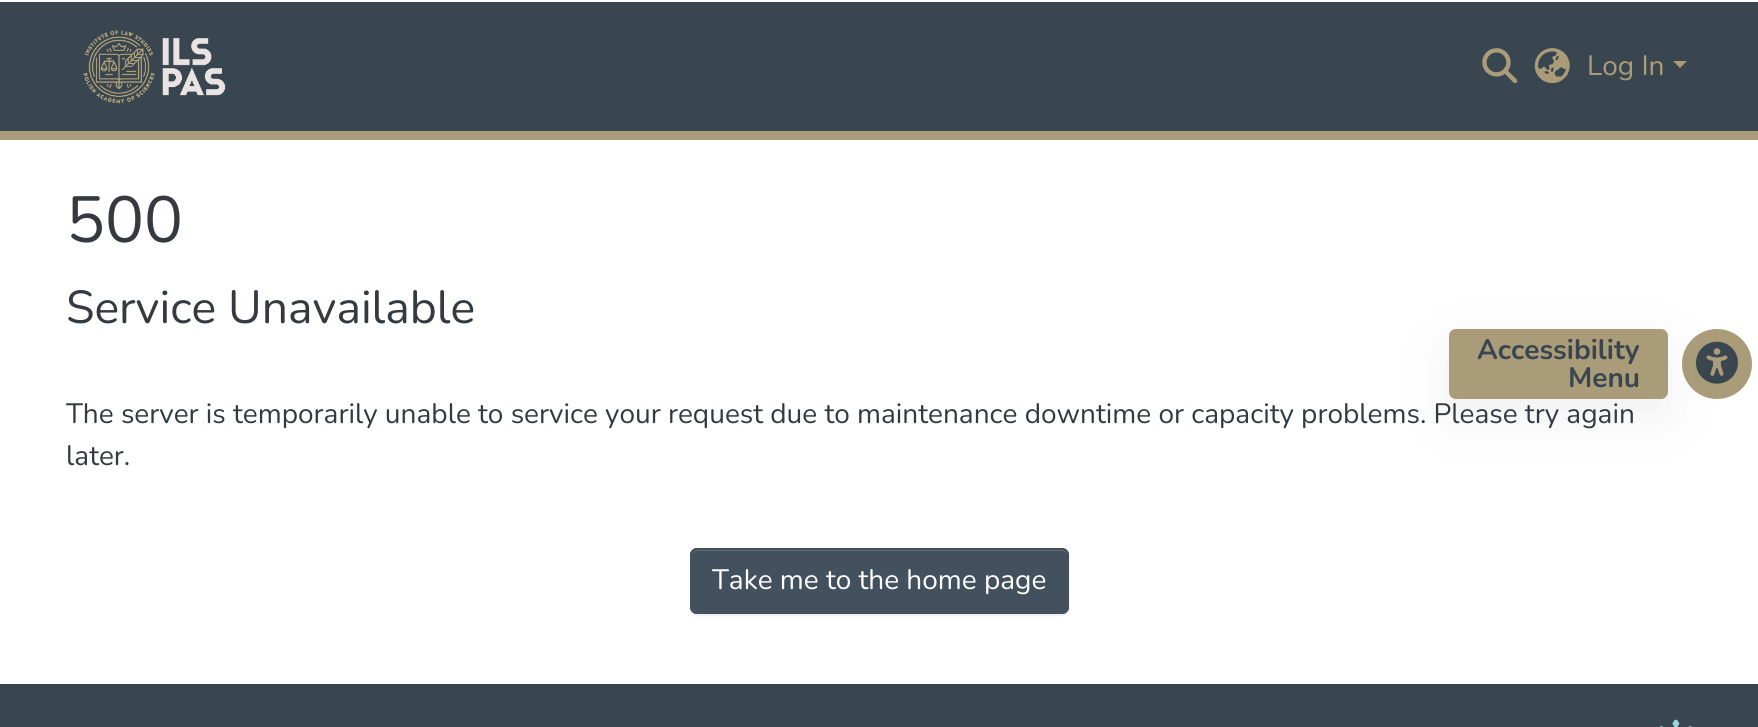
import math
import cairo


def use_color(cr, r, g, b):
  cr.set_source_rgb(r / 255, g / 255, b / 255)

def text(cr, x, y, s, family, size, color, bold=False, italic=False):
  cr.select_font_face(family, cairo.FONT_SLANT_ITALIC if italic else cairo.FONT_SLANT_NORMAL, cairo.FONT_WEIGHT_BOLD if bold else cairo.FONT_WEIGHT_NORMAL)
  cr.set_font_size(size)
  use_color(cr, *color)
  cr.move_to(x, y)
  cr.show_text(s)

def box(cr, x, y, w, h, *color):
  use_color(cr, *color)
  cr.rectangle(x, y, w, h)
  cr.fill()

def round_rect(cr, x, y, w, h, r):
  cr.new_sub_path()
  for i, (u, v) in enumerate([(x + w - r, y + h - r), (x + r, y + h - r), (x + r, y + r), (x + w - r, y + r)]):
    cr.arc(u, v, r, i * math.pi / 2, (i + 1) * math.pi / 2)
  cr.close_path()

def shadow(cr, x, y, w, h, r, blur, alpha):
  cr.push_group_with_content(cairo.CONTENT_ALPHA)
  cr.set_operator(cairo.OPERATOR_SOURCE)
  for i in range(15, -16, -2):
    e = blur * i / 6
    if min(w, h) + 2 * e > 0:
      cr.set_source_rgba(0, 0, 0, alpha * math.erfc((i - 1) / 8.5) / 2)
      round_rect(cr, x - e, y - e, w + 2 * e, h + 2 * e, max(0, min(r + e + blur * .6, min(w, h) / 2 + e)))
      cr.fill()
  cr.mask(cr.pop_group())

def picture(cr, path, x, y, w, h):
  cr.save()
  cr.set_source_surface(cairo.ImageSurface.create_from_png(path), x, y)
  cr.rectangle(x, y, w, h)
  cr.fill()
  cr.restore()

def draw(cr):
  use_color(cr, 255, 255, 255)
  cr.paint()
  box(cr, 0, 2, 1758, 129, 58, 70, 79)
  box(cr, 0, 131, 1758, 9, 170, 156, 121)
  picture(cr, "img_01.png", 83, 30, 143, 74)
  picture(cr, "img_02.png", 1482, 48, 36, 36)
  picture(cr, "img_03.png", 1534, 48, 36, 36)
  cr.new_path()
  cr.move_to(1673, 61)
  cr.line_to(1687, 61)
  cr.line_to(1680, 68)
  cr.close_path()
  cr.fill()
  use_color(cr, 0, 0, 0)
  shadow(cr, 690, 550, 379, 66, 7, 1, 0.07)
  use_color(cr, 67, 81, 95)
  round_rect(cr, 690, 548, 379, 66, 7)
  cr.fill()
  use_color(cr, 95, 107, 119)
  cr.new_path()
  cr.move_to(696, 551)
  cr.line_to(1062, 551)
  cr.curve_to(1065, 551, 1068, 554, 1068, 556)
  cr.line_to(1068, 555)
  cr.curve_to(1068, 552, 1066, 550, 1063, 550)
  cr.line_to(696, 550)
  cr.curve_to(693, 550, 691, 552, 691, 555)
  cr.line_to(691, 556)
  cr.curve_to(691, 554, 694, 551, 696, 551)
  cr.close_path()
  cr.fill()
  round_rect(cr, 691, 549, 377, 64, 6)
  use_color(cr, 67, 81, 95)
  cr.stroke()
  box(cr, 0, 684, 1758, 43, 58, 70, 79)
  picture(cr, "img_04.png", 1659, 719, 34, 8)
  use_color(cr, 170, 156, 121)
  cr.arc(1717, 364, 35, 0, 2 * math.pi)
  cr.fill()
  picture(cr, "img_05.png", 1696, 341, 42, 43)
  use_color(cr, 102, 102, 102)
  shadow(cr, 1449, 347, 219, 70, 7, 26, 0.1)
  use_color(cr, 170, 156, 121)
  round_rect(cr, 1449, 329, 219, 70, 7)
  cr.fill()
  text(cr, 1587, 75, "Log In", "Nunito", 28, (170, 156, 121))
  text(cr, 66, 242, "500", "Nunito", 65, (52, 58, 64))
  text(cr, 66, 323, "Service Unavailable", "Nunito", 46.25, (52, 58, 64))
  text(cr, 66, 423, "The server is temporarily unable to service your request due to maintenance downtime or capacity problems. Please try again", "Nunito", 28, (52, 58, 64))
  text(cr, 66, 465, "later.", "Nunito", 28, (52, 58, 64))
  text(cr, 712, 589, "Take me to the home page", "Nunito", 28, (255, 255, 255))
  text(cr, 1477, 359, "Accessibility", "Nunito", 28, (58, 70, 79), bold=True)
  text(cr, 1568, 387, "Menu", "Nunito", 28, (58, 70, 79), bold=True)


surface = cairo.ImageSurface(cairo.FORMAT_RGB24, 1758, 727)
cr = cairo.Context(surface)
options = cairo.FontOptions()
options.set_hint_metrics(cairo.HINT_METRICS_OFF)
options.set_hint_style(cairo.HINT_STYLE_NONE)
cr.set_font_options(options)
cr.set_miter_limit(4)
draw(cr)
surface.write_to_png("out.png")
